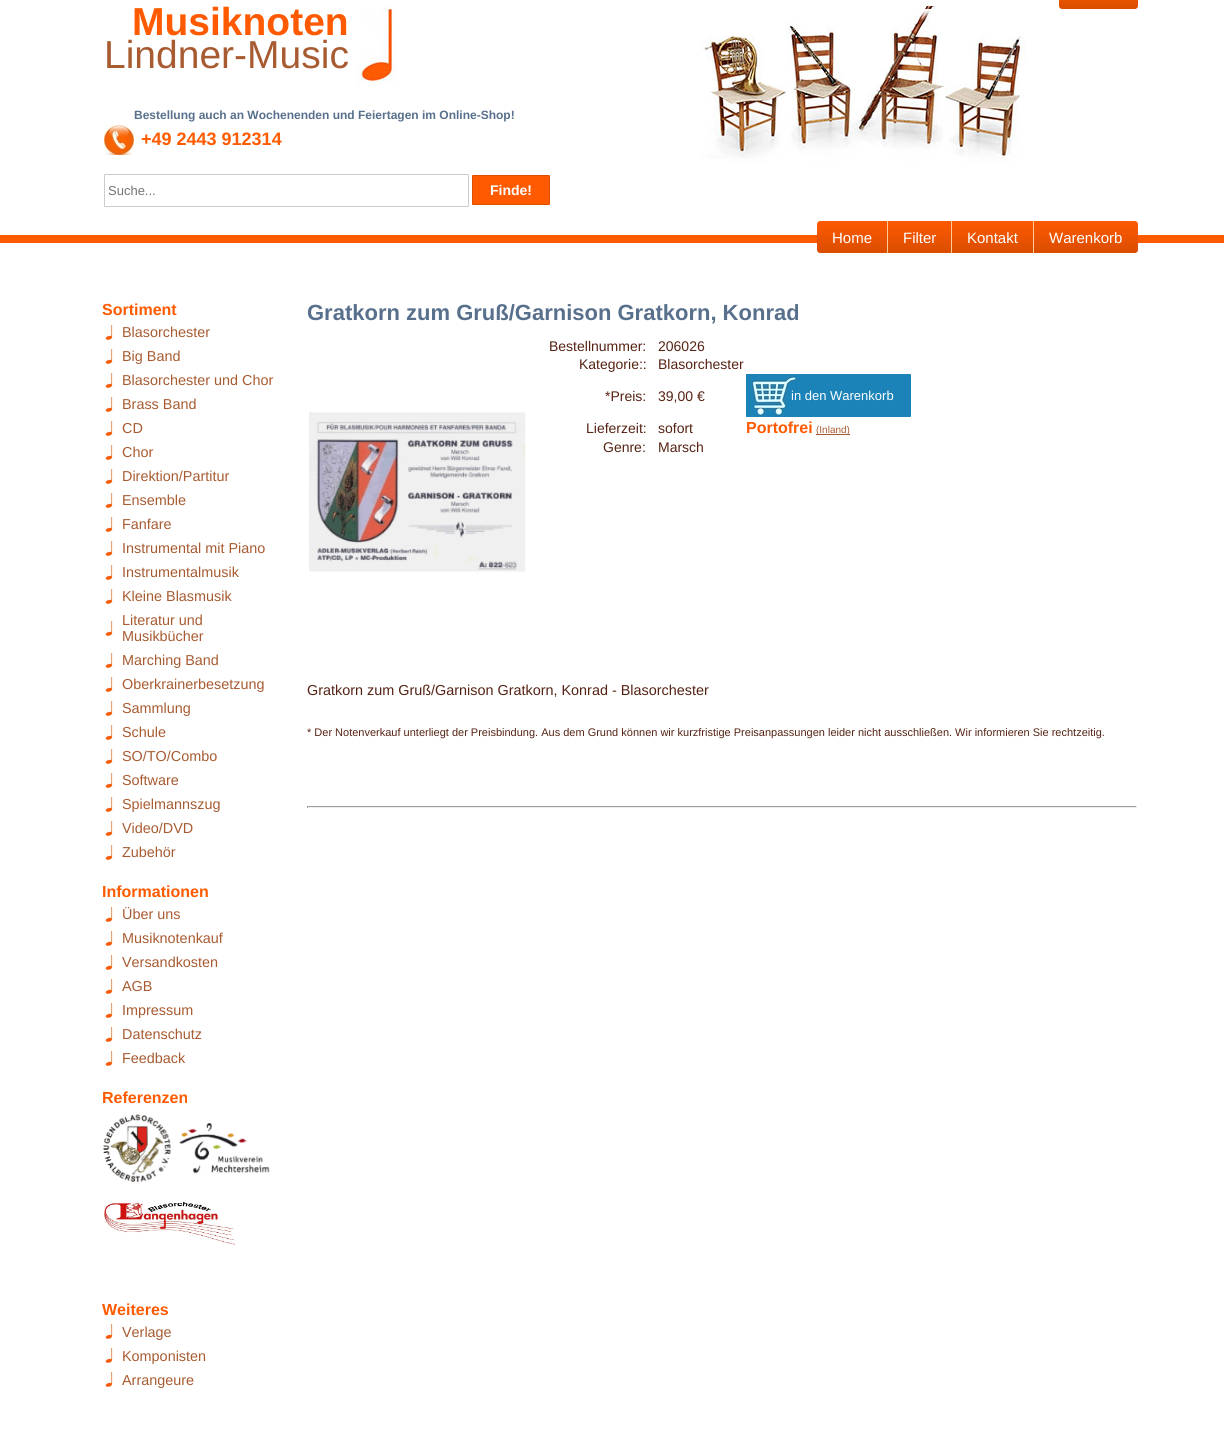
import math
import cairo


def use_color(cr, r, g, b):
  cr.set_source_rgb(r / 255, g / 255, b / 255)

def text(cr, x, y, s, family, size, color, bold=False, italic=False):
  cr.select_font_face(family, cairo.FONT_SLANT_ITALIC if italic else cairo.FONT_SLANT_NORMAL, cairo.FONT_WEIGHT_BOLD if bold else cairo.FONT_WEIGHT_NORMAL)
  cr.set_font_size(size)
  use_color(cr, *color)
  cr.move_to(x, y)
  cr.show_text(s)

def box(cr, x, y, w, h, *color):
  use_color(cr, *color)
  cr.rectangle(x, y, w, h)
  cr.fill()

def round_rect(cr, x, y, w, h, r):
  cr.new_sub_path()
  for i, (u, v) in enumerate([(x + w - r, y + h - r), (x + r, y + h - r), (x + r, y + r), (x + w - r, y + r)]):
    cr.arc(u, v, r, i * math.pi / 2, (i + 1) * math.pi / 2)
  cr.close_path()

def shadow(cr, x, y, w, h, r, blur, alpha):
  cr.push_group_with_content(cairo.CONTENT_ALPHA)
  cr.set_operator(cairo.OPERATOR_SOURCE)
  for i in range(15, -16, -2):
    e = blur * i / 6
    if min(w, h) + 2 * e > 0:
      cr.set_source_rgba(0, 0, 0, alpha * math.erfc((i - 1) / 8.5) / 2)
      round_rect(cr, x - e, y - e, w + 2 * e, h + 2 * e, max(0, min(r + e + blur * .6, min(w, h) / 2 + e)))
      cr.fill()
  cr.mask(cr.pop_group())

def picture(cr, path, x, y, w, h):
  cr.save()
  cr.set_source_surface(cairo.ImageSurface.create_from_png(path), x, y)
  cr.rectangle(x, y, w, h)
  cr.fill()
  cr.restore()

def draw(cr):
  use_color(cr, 255, 255, 255)
  cr.paint()
  box(cr, 0, 235, 1224, 8, 255, 90, 0)
  picture(cr, "img_01.png", 701, 0, 326, 163)
  picture(cr, "img_02.png", 357, 5, 40, 80)
  cr.save()
  cr.set_fill_rule(cairo.FILL_RULE_EVEN_ODD)
  cr.new_path()
  cr.move_to(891, 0)
  cr.line_to(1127, 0)
  cr.line_to(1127, 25)
  cr.line_to(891, 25)
  cr.close_path()
  cr.move_to(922, -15)
  cr.line_to(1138, -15)
  cr.line_to(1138, 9)
  cr.line_to(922, 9)
  cr.close_path()
  cr.clip()
  use_color(cr, 255, 255, 255)
  shadow(cr, 901, -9, 216, 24, 0, 3, 1)
  cr.restore()
  box(cr, 922, 0, 17, 6, 255, 255, 255)
  gradient = cairo.LinearGradient(1099, -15, 1099, 9)
  gradient.add_color_stop_rgba(0, 1, 0.353, 0, 1)
  gradient.add_color_stop_rgba(1, 0.851, 0.302, 0, 1)
  cr.set_source(gradient)
  cr.new_path()
  cr.move_to(1059, -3)
  cr.line_to(1138, -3)
  cr.line_to(1138, 6)
  cr.curve_to(1138, 7.5, 1136.5, 9, 1135, 9)
  cr.line_to(1062, 9)
  cr.curve_to(1060.5, 9, 1059, 7.5, 1059, 6)
  cr.close_path()
  cr.fill()
  picture(cr, "img_03.png", 104, 125, 30, 30)
  round_rect(cr, 104.5, 174.5, 364, 32, 0.5)
  use_color(cr, 204, 204, 204)
  cr.set_line_width(1)
  cr.stroke()
  use_color(cr, 255, 90, 0)
  round_rect(cr, 472.5, 175.5, 77, 29, 0.5)
  cr.fill_preserve()
  use_color(cr, 222, 78, 0)
  cr.stroke()
  gradient = cairo.LinearGradient(852, 221, 852, 253)
  gradient.add_color_stop_rgba(0, 1, 0.353, 0, 1)
  gradient.add_color_stop_rgba(1, 0.851, 0.302, 0, 1)
  cr.set_source(gradient)
  cr.new_path()
  cr.move_to(820, 221)
  cr.line_to(887, 221)
  cr.line_to(887, 253)
  cr.line_to(820, 253)
  cr.curve_to(818.5, 253, 817, 251.5, 817, 250)
  cr.line_to(817, 224)
  cr.curve_to(817, 222.5, 818.5, 221, 820, 221)
  cr.close_path()
  cr.fill()
  gradient = cairo.LinearGradient(920, 221, 920, 253)
  gradient.add_color_stop_rgba(0, 1, 0.353, 0, 1)
  gradient.add_color_stop_rgba(1, 0.851, 0.302, 0, 1)
  cr.set_source(gradient)
  cr.rectangle(888, 221, 63, 32)
  cr.fill()
  box(cr, 887, 221, 1, 32, 255, 203, 153)
  gradient = cairo.LinearGradient(993, 221, 993, 253)
  gradient.add_color_stop_rgba(0, 1, 0.353, 0, 1)
  gradient.add_color_stop_rgba(1, 0.851, 0.302, 0, 1)
  cr.set_source(gradient)
  cr.rectangle(952, 221, 81, 32)
  cr.fill()
  box(cr, 951, 221, 1, 32, 255, 203, 153)
  gradient = cairo.LinearGradient(1086, 221, 1086, 253)
  gradient.add_color_stop_rgba(0, 1, 0.353, 0, 1)
  gradient.add_color_stop_rgba(1, 0.851, 0.302, 0, 1)
  cr.set_source(gradient)
  cr.new_path()
  cr.move_to(1033, 221)
  cr.line_to(1135, 221)
  cr.curve_to(1136.5, 221, 1138, 222.5, 1138, 224)
  cr.line_to(1138, 250)
  cr.curve_to(1138, 251.5, 1136.5, 253, 1135, 253)
  cr.line_to(1033, 253)
  cr.close_path()
  cr.fill()
  box(cr, 1033, 221, 1, 32, 255, 203, 153)
  picture(cr, "img_04.png", 105, 325, 8, 15)
  picture(cr, "img_04.png", 105, 349, 8, 15)
  picture(cr, "img_04.png", 105, 373, 8, 15)
  picture(cr, "img_04.png", 105, 397, 8, 15)
  picture(cr, "img_04.png", 105, 421, 8, 15)
  picture(cr, "img_04.png", 105, 445, 8, 15)
  picture(cr, "img_04.png", 105, 469, 8, 15)
  picture(cr, "img_04.png", 105, 493, 8, 15)
  picture(cr, "img_04.png", 105, 517, 8, 15)
  picture(cr, "img_04.png", 105, 541, 8, 15)
  picture(cr, "img_04.png", 105, 565, 8, 15)
  picture(cr, "img_04.png", 105, 589, 8, 15)
  picture(cr, "img_04.png", 105, 621, 8, 15)
  picture(cr, "img_04.png", 105, 653, 8, 15)
  picture(cr, "img_04.png", 105, 677, 8, 15)
  picture(cr, "img_04.png", 105, 701, 8, 15)
  picture(cr, "img_04.png", 105, 725, 8, 15)
  picture(cr, "img_04.png", 105, 749, 8, 15)
  picture(cr, "img_04.png", 105, 773, 8, 15)
  picture(cr, "img_04.png", 105, 797, 8, 15)
  picture(cr, "img_04.png", 105, 821, 8, 15)
  picture(cr, "img_04.png", 105, 845, 8, 15)
  picture(cr, "img_04.png", 105, 907, 8, 15)
  picture(cr, "img_04.png", 105, 931, 8, 15)
  picture(cr, "img_04.png", 105, 955, 8, 15)
  picture(cr, "img_04.png", 105, 979, 8, 15)
  picture(cr, "img_04.png", 105, 1003, 8, 15)
  picture(cr, "img_04.png", 105, 1027, 8, 15)
  picture(cr, "img_04.png", 105, 1051, 8, 15)
  picture(cr, "img_05.png", 103, 1114, 68, 68)
  picture(cr, "img_06.png", 179, 1123, 91, 51)
  picture(cr, "img_07.png", 104, 1201, 131, 44)
  picture(cr, "img_04.png", 105, 1324, 8, 15)
  picture(cr, "img_04.png", 105, 1348, 8, 15)
  picture(cr, "img_04.png", 105, 1372, 8, 15)
  use_color(cr, 27, 131, 184)
  round_rect(cr, 746, 374, 165, 43, 1)
  cr.fill()
  picture(cr, "img_08.png", 746, 374, 52, 43)
  box(cr, 816, 434, 34, 1, 168, 91, 49)
  picture(cr, "img_09.png", 309, 412, 217, 160)
  box(cr, 307, 806, 830, 1, 159, 159, 159)
  box(cr, 1136, 806, 1, 2, 238, 238, 238)
  box(cr, 307, 807, 830, 1, 238, 238, 238)
  box(cr, 307, 806, 1, 2, 159, 159, 159)
  text(cr, 132, 35, "Musiknoten", "Liberation Sans", 39, (255, 90, 0), bold=True)
  text(cr, 104, 68, "Lindner-Music", "Liberation Sans", 39, (168, 91, 49))
  text(cr, 134, 119, "Bestellung auch an Wochenenden und Feiertagen im Online-Shop!", "Liberation Sans", 12, (88, 112, 140), bold=True)
  text(cr, 141, 145, "+49 2443 912314", "Liberation Sans", 18, (255, 90, 0), bold=True)
  text(cr, 108, 195, "Suche...", "Liberation Sans", 13, (117, 117, 117))
  text(cr, 490, 195, "Finde!", "Liberation Sans", 14, (255, 255, 255), bold=True)
  text(cr, 832, 243, "Home", "Liberation Sans", 15, (255, 255, 255))
  text(cr, 903, 243, "Filter", "Liberation Sans", 15, (255, 255, 255))
  text(cr, 967, 243, "Kontakt", "Liberation Sans", 15, (255, 255, 255))
  text(cr, 1049, 243, "Warenkorb", "Liberation Sans", 15, (255, 255, 255))
  text(cr, 102, 315, "Sortiment", "Liberation Sans", 16, (255, 90, 0), bold=True)
  text(cr, 122, 337, "Blasorchester", "Liberation Sans", 14.4, (168, 91, 49))
  text(cr, 122, 361, "Big Band", "Liberation Sans", 14.4, (168, 91, 49))
  text(cr, 122, 385, "Blasorchester und Chor", "Liberation Sans", 14.4, (168, 91, 49))
  text(cr, 122, 409, "Brass Band", "Liberation Sans", 14.4, (168, 91, 49))
  text(cr, 122, 433, "CD", "Liberation Sans", 14.4, (168, 91, 49))
  text(cr, 122, 457, "Chor", "Liberation Sans", 14.4, (168, 91, 49))
  text(cr, 122, 481, "Direktion/Partitur", "Liberation Sans", 14.4, (168, 91, 49))
  text(cr, 122, 505, "Ensemble", "Liberation Sans", 14.4, (168, 91, 49))
  text(cr, 122, 529, "Fanfare", "Liberation Sans", 14.4, (168, 91, 49))
  text(cr, 122, 553, "Instrumental mit Piano", "Liberation Sans", 14.4, (168, 91, 49))
  text(cr, 122, 577, "Instrumentalmusik", "Liberation Sans", 14.4, (168, 91, 49))
  text(cr, 122, 601, "Kleine Blasmusik", "Liberation Sans", 14.4, (168, 91, 49))
  text(cr, 122, 625, "Literatur und", "Liberation Sans", 14.4, (168, 91, 49))
  text(cr, 122, 641, "Musikbücher", "Liberation Sans", 14.4, (168, 91, 49))
  text(cr, 122, 665, "Marching Band", "Liberation Sans", 14.4, (168, 91, 49))
  text(cr, 122, 689, "Oberkrainerbesetzung", "Liberation Sans", 14.4, (168, 91, 49))
  text(cr, 122, 713, "Sammlung", "Liberation Sans", 14.4, (168, 91, 49))
  text(cr, 122, 737, "Schule", "Liberation Sans", 14.4, (168, 91, 49))
  text(cr, 122, 761, "SO/TO/Combo", "Liberation Sans", 14.4, (168, 91, 49))
  text(cr, 122, 785, "Software", "Liberation Sans", 14.4, (168, 91, 49))
  text(cr, 122, 809, "Spielmannszug", "Liberation Sans", 14.4, (168, 91, 49))
  text(cr, 122, 833, "Video/DVD", "Liberation Sans", 14.4, (168, 91, 49))
  text(cr, 122, 857, "Zubehör", "Liberation Sans", 14.4, (168, 91, 49))
  text(cr, 102, 897, "Informationen", "Liberation Sans", 16, (255, 90, 0), bold=True)
  text(cr, 122, 919, "Über uns", "Liberation Sans", 14.4, (168, 91, 49))
  text(cr, 122, 943, "Musiknotenkauf", "Liberation Sans", 14.4, (168, 91, 49))
  text(cr, 122, 967, "Versandkosten", "Liberation Sans", 14.4, (168, 91, 49))
  text(cr, 122, 991, "AGB", "Liberation Sans", 14.4, (168, 91, 49))
  text(cr, 122, 1015, "Impressum", "Liberation Sans", 14.4, (168, 91, 49))
  text(cr, 122, 1039, "Datenschutz", "Liberation Sans", 14.4, (168, 91, 49))
  text(cr, 122, 1063, "Feedback", "Liberation Sans", 14.4, (168, 91, 49))
  text(cr, 102, 1103, "Referenzen", "Liberation Sans", 16, (255, 90, 0), bold=True)
  text(cr, 102, 1315, "Weiteres", "Liberation Sans", 16, (255, 90, 0), bold=True)
  text(cr, 122, 1337, "Verlage", "Liberation Sans", 14.4, (168, 91, 49))
  text(cr, 122, 1361, "Komponisten", "Liberation Sans", 14.4, (168, 91, 49))
  text(cr, 122, 1385, "Arrangeure", "Liberation Sans", 14.4, (168, 91, 49))
  text(cr, 307, 320, "Gratkorn zum Gruß/Garnison Gratkorn, Konrad", "Liberation Sans", 22, (88, 112, 140), bold=True)
  text(cr, 549, 351, "Bestellnummer:", "Liberation Sans", 14, (85, 35, 20))
  text(cr, 658, 351, "206026", "Liberation Sans", 14, (85, 35, 20))
  text(cr, 579, 369, "Kategorie::", "Liberation Sans", 14, (85, 35, 20))
  text(cr, 658, 369, "Blasorchester", "Liberation Sans", 14, (85, 35, 20))
  text(cr, 605, 401, "*Preis:", "Liberation Sans", 14, (85, 35, 20))
  text(cr, 658, 401, "39,00 €", "Liberation Sans", 14, (85, 35, 20))
  text(cr, 791, 400, "in den Warenkorb", "Liberation Sans", 13, (255, 255, 255))
  text(cr, 586, 433, "Lieferzeit:", "Liberation Sans", 14, (85, 35, 20))
  text(cr, 658, 433, "sofort", "Liberation Sans", 14, (85, 35, 20))
  text(cr, 746, 433, "Portofrei", "Liberation Sans", 16, (255, 90, 0), bold=True)
  text(cr, 816, 433, "(Inland)", "Liberation Sans", 10, (168, 91, 49))
  text(cr, 603, 452, "Genre:", "Liberation Sans", 14, (85, 35, 20))
  text(cr, 658, 452, "Marsch", "Liberation Sans", 14, (85, 35, 20))
  text(cr, 307, 695, "Gratkorn zum Gruß/Garnison Gratkorn, Konrad - Blasorchester", "Liberation Sans", 14.4, (85, 35, 20))
  text(cr, 307, 736, "* Der Notenverkauf unterliegt der Preisbindung. Aus dem Grund können wir kurzfristige Preisanpassungen leider nicht ausschließen. Wir informieren Sie rechtzeitig.", "Liberation Sans", 11, (85, 35, 20))


surface = cairo.ImageSurface(cairo.FORMAT_RGB24, 1224, 1430)
cr = cairo.Context(surface)
options = cairo.FontOptions()
options.set_hint_metrics(cairo.HINT_METRICS_OFF)
options.set_hint_style(cairo.HINT_STYLE_NONE)
cr.set_font_options(options)
cr.set_miter_limit(4)
draw(cr)
surface.write_to_png("out.png")
